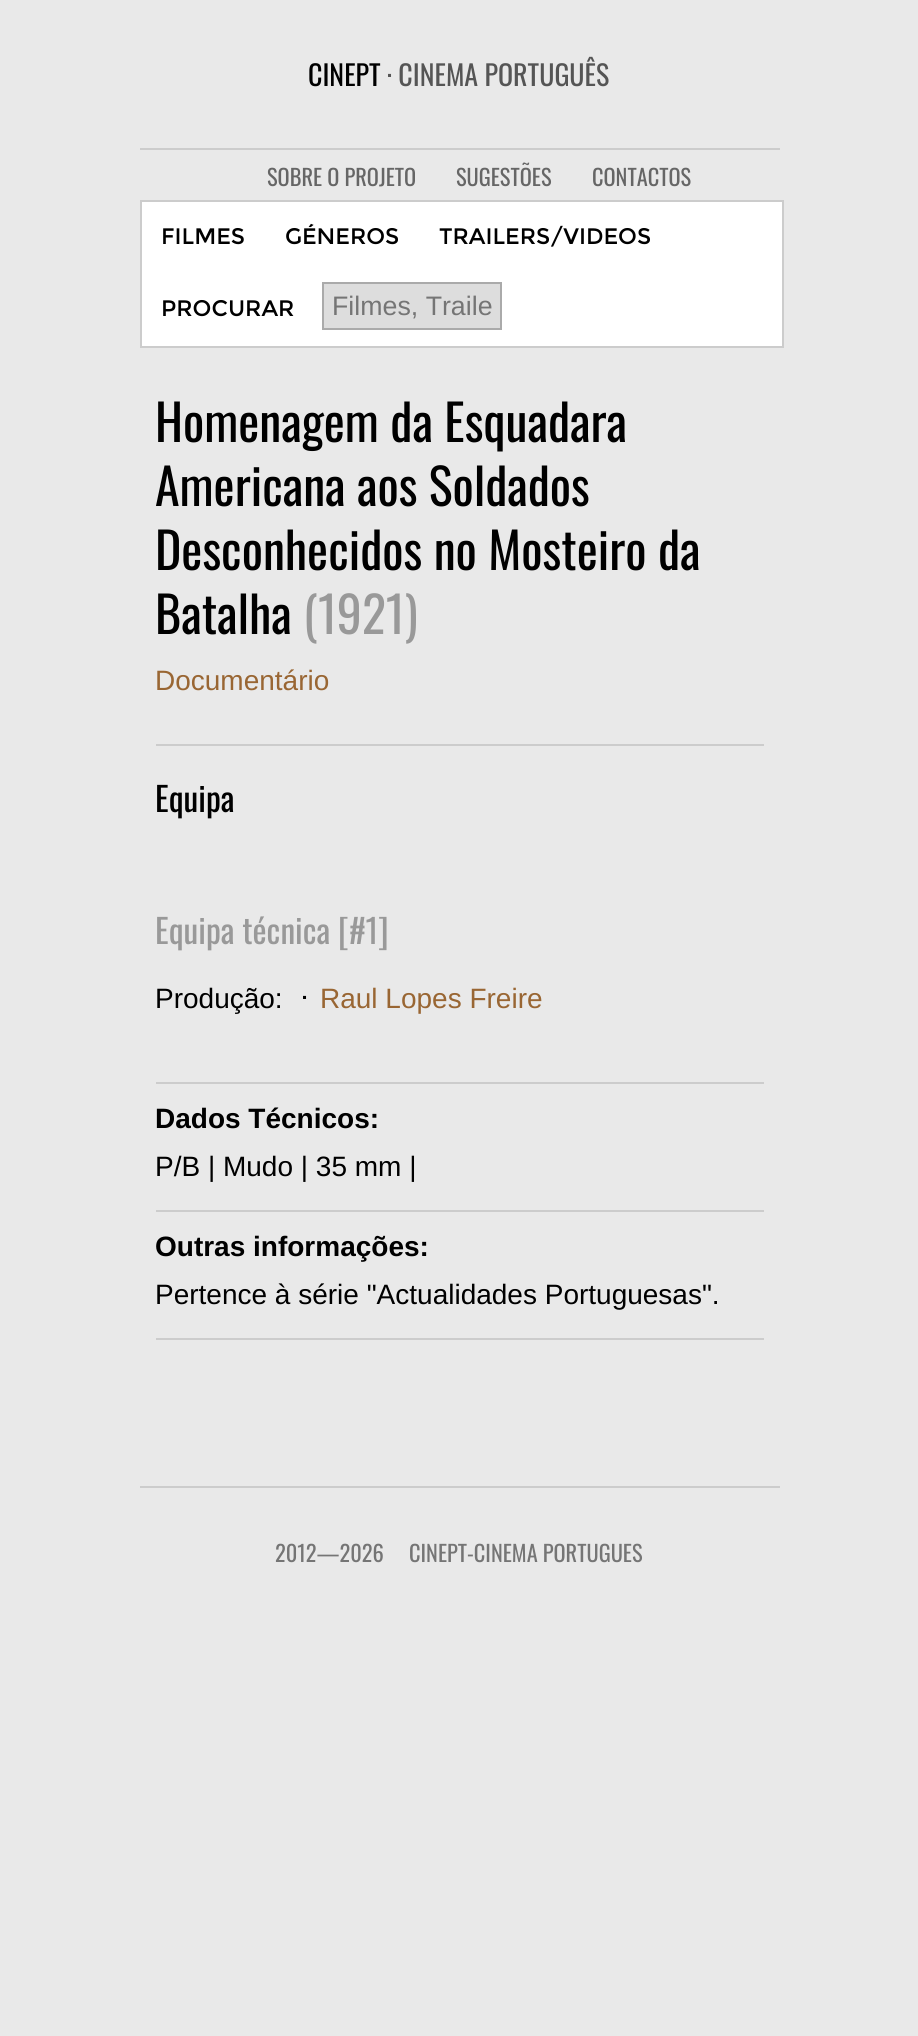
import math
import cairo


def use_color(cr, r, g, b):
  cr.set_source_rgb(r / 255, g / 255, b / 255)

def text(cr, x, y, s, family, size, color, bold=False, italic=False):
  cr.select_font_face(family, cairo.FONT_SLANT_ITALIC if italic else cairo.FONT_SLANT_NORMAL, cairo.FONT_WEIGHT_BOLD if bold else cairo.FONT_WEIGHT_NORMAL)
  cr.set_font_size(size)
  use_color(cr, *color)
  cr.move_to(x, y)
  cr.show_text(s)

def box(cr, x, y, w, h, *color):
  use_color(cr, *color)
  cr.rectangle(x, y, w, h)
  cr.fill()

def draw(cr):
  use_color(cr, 233, 233, 233)
  cr.paint()
  box(cr, 140, 148, 640, 2, 204, 204, 204)
  use_color(cr, 255, 255, 255)
  cr.rectangle(141, 201, 642, 146)
  cr.fill_preserve()
  use_color(cr, 204, 204, 204)
  cr.stroke()
  use_color(cr, 221, 221, 221)
  cr.rectangle(323, 283, 178, 46)
  cr.fill_preserve()
  use_color(cr, 170, 170, 170)
  cr.stroke()
  box(cr, 156, 744, 608, 2, 204, 204, 204)
  box(cr, 156, 1082, 608, 2, 204, 204, 204)
  box(cr, 156, 1210, 608, 2, 204, 204, 204)
  box(cr, 156, 1338, 608, 2, 204, 204, 204)
  box(cr, 140, 1486, 640, 2, 204, 204, 204)
  text(cr, 308, 86, "CINEPT", "Oswald", 28, (0, 0, 0))
  text(cr, 387, 86, "· CINEMA PORTUGUÊS", "Oswald", 28, (85, 85, 85))
  text(cr, 267, 186, "SOBRE O PROJETO", "Oswald", 22.4, (102, 102, 102))
  text(cr, 456, 186, "SUGESTÕES", "Oswald", 22.4, (102, 102, 102))
  text(cr, 592, 186, "CONTACTOS", "Oswald", 22.4, (102, 102, 102))
  text(cr, 161, 244, "FILMES", "Montserrat", 22.4, (0, 0, 0))
  text(cr, 285, 244, "GÉNEROS", "Montserrat", 22.4, (0, 0, 0))
  text(cr, 439, 244, "TRAILERS/VIDEOS", "Montserrat", 22.4, (0, 0, 0))
  text(cr, 161, 316, "PROCURAR", "Montserrat", 22.4, (0, 0, 0))
  text(cr, 332, 315, "Filmes, Traile", "Liberation Sans", 26.75, (117, 117, 117))
  text(cr, 155, 442, "Homenagem da Esquadara", "Oswald", 50, (0, 0, 0))
  text(cr, 155, 506, "Americana aos Soldados", "Oswald", 50, (0, 0, 0))
  text(cr, 155, 570, "Desconhecidos no Mosteiro da", "Oswald", 50, (0, 0, 0))
  text(cr, 155, 634, "Batalha", "Oswald", 50, (0, 0, 0))
  text(cr, 303, 634, "(1921)", "Oswald", 50, (153, 153, 153))
  text(cr, 155, 690, "Documentário", "Liberation Sans", 28, (153, 102, 51))
  text(cr, 155, 812, "Equipa", "Oswald", 33.5, (0, 0, 0))
  text(cr, 155, 944, "Equipa técnica [#1]", "Oswald", 33.5, (153, 153, 153))
  text(cr, 155, 1008, "Produção:", "Liberation Sans", 28, (0, 0, 0))
  text(cr, 302, 1008, "·", "Oswald", 28, (0, 0, 0))
  text(cr, 320, 1008, "Raul Lopes Freire", "Liberation Sans", 28, (153, 102, 51))
  text(cr, 155, 1128, "Dados Técnicos:", "Liberation Sans", 28, (0, 0, 0), bold=True)
  text(cr, 155, 1176, "P/B | Mudo | 35 mm |", "Liberation Sans", 28, (0, 0, 0))
  text(cr, 155, 1256, "Outras informações:", "Liberation Sans", 28, (0, 0, 0), bold=True)
  text(cr, 155, 1304, "Pertence à série \"Actualidades Portuguesas\".", "Liberation Sans", 28, (0, 0, 0))
  text(cr, 275, 1562, "2012—2026", "Oswald", 22.4, (117, 117, 117))
  text(cr, 409, 1562, "CINEPT-CINEMA PORTUGUES", "Oswald", 22.4, (117, 117, 117))


surface = cairo.ImageSurface(cairo.FORMAT_RGB24, 918, 2036)
cr = cairo.Context(surface)
options = cairo.FontOptions()
options.set_hint_metrics(cairo.HINT_METRICS_OFF)
options.set_hint_style(cairo.HINT_STYLE_NONE)
cr.set_font_options(options)
cr.set_miter_limit(4)
draw(cr)
surface.write_to_png("out.png")
